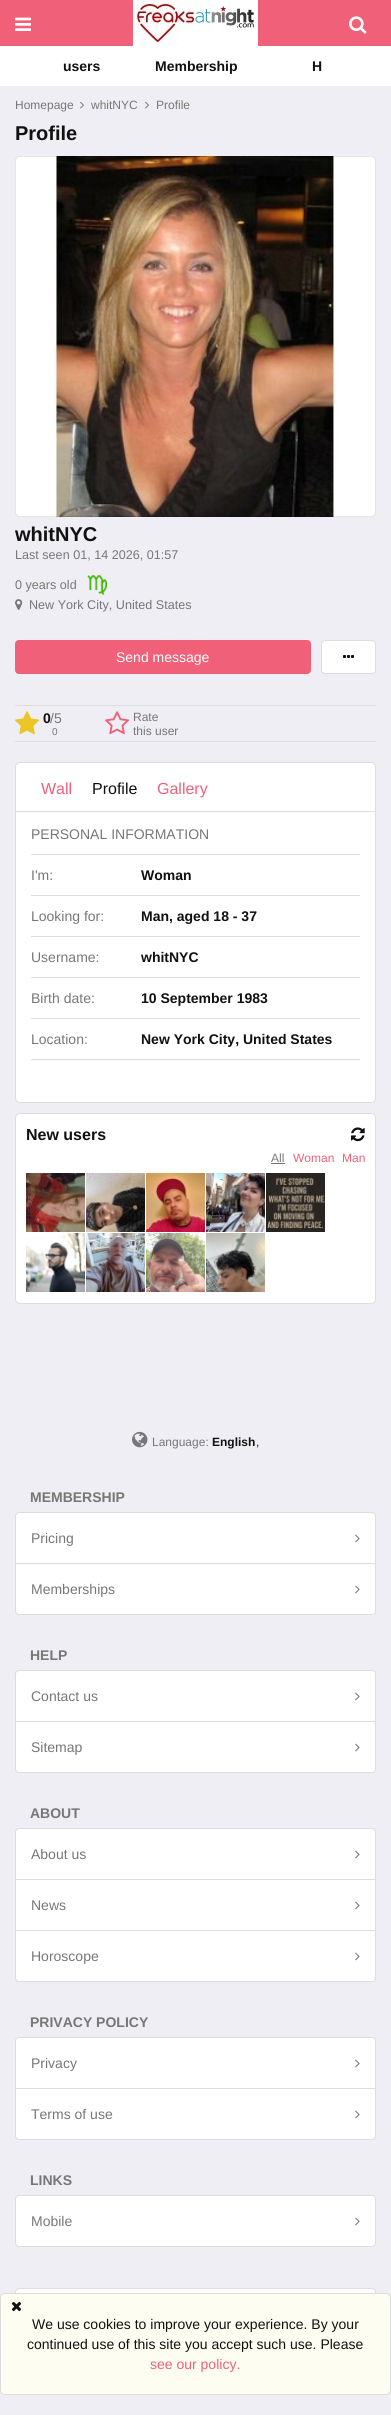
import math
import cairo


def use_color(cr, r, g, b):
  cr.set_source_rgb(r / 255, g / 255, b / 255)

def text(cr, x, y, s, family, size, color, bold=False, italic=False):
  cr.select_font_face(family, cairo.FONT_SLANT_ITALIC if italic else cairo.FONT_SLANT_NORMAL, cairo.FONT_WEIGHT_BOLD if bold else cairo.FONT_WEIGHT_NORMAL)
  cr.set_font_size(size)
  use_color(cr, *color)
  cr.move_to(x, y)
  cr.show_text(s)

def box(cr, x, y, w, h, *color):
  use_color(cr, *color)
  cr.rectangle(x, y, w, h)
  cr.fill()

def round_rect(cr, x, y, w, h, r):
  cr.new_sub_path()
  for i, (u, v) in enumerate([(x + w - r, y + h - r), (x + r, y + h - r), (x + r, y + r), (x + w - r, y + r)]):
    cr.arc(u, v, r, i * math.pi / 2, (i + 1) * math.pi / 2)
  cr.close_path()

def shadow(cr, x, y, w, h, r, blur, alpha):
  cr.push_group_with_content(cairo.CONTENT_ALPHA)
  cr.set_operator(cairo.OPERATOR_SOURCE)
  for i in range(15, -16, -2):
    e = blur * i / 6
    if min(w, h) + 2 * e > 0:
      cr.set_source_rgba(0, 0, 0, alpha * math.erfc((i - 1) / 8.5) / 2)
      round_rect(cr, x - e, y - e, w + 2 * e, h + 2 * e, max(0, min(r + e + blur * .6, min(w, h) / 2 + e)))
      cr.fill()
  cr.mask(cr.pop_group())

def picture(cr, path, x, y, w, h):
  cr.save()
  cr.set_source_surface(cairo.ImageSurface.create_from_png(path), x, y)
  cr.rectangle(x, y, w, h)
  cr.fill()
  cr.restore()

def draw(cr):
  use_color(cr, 238, 238, 244)
  cr.paint()
  box(cr, 0, 46, 391, 40, 255, 255, 255)
  cr.save()
  cr.rectangle(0, 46, 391, 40)
  cr.clip()
  use_color(cr, 255, 255, 255)
  shadow(cr, -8, 46, 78, 40, 0, 2.5, 0.8)
  shadow(cr, 321, 46, 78, 40, 0, 2.5, 0.8)
  cr.restore()
  box(cr, 0, 0, 391, 46, 240, 96, 120)
  picture(cr, "img_01.png", 15, 17, 16, 14)
  picture(cr, "img_02.png", 133, 0, 125, 46)
  picture(cr, "img_03.png", 349, 16, 18, 18)
  picture(cr, "img_04.png", 80, 101, 4, 8)
  picture(cr, "img_04.png", 145, 101, 4, 8)
  picture(cr, "img_05.png", 15, 156, 361, 361)
  round_rect(cr, 15.5, 156.5, 360, 360, 4.5)
  cr.set_source_rgba(0, 0, 0, 0.1)
  cr.set_line_width(1)
  cr.stroke()
  picture(cr, "img_06.png", 87, 575, 20, 20)
  picture(cr, "img_07.png", 15, 599, 8, 11)
  use_color(cr, 240, 96, 120)
  round_rect(cr, 15.5, 640.5, 295, 33, 3.5)
  cr.fill_preserve()
  cr.stroke()
  use_color(cr, 255, 255, 255)
  round_rect(cr, 321.5, 640.5, 54, 33, 3.5)
  cr.fill_preserve()
  use_color(cr, 221, 221, 221)
  cr.stroke()
  picture(cr, "img_08.png", 343, 655, 11, 3)
  box(cr, 15, 705, 361, 1, 221, 221, 221)
  box(cr, 15, 741, 361, 1, 221, 221, 221)
  picture(cr, "img_09.png", 15, 711, 25, 24)
  picture(cr, "img_10.png", 105, 711, 25, 24)
  use_color(cr, 255, 255, 255)
  round_rect(cr, 15.5, 762.5, 360, 340, 4.5)
  cr.fill_preserve()
  use_color(cr, 221, 221, 221)
  cr.stroke()
  box(cr, 16, 811, 359, 1, 222, 222, 222)
  box(cr, 31, 854, 329, 1, 221, 221, 221)
  box(cr, 31, 895, 329, 1, 222, 222, 222)
  box(cr, 31, 936, 329, 1, 222, 222, 222)
  box(cr, 31, 977, 329, 1, 222, 222, 222)
  box(cr, 31, 1018, 329, 1, 222, 222, 222)
  box(cr, 31, 1059, 329, 1, 222, 222, 222)
  use_color(cr, 255, 255, 255)
  round_rect(cr, 15.5, 1113.5, 360, 190, 4.5)
  cr.fill_preserve()
  use_color(cr, 221, 221, 221)
  cr.stroke()
  picture(cr, "img_11.png", 351, 1127, 14, 15)
  box(cr, 271, 1163, 14, 1, 119, 119, 119)
  picture(cr, "img_12.png", 26, 1173, 59, 59)
  picture(cr, "img_13.png", 86, 1173, 59, 59)
  picture(cr, "img_14.png", 146, 1173, 59, 59)
  picture(cr, "img_15.png", 206, 1173, 59, 59)
  picture(cr, "img_16.png", 266, 1173, 59, 59)
  picture(cr, "img_17.png", 26, 1233, 59, 59)
  picture(cr, "img_18.png", 86, 1233, 59, 59)
  picture(cr, "img_19.png", 146, 1233, 59, 59)
  picture(cr, "img_20.png", 206, 1233, 59, 59)
  use_color(cr, 255, 255, 255)
  round_rect(cr, 15.5, 2288.5, 360, 51, 3.5)
  cr.fill_preserve()
  use_color(cr, 221, 221, 221)
  cr.stroke()
  use_color(cr, 253, 253, 241)
  round_rect(cr, 0.5, 2293.5, 390, 101, 4.5)
  cr.fill_preserve()
  use_color(cr, 221, 221, 221)
  cr.stroke()
  picture(cr, "img_21.png", 11, 2301, 11, 11)
  picture(cr, "img_22.png", 132, 1431, 16, 17)
  use_color(cr, 255, 255, 255)
  cr.new_path()
  cr.move_to(19, 1512.5)
  cr.line_to(372, 1512.5)
  cr.curve_to(374, 1512.5, 375.5, 1514, 375.5, 1516)
  cr.line_to(375.5, 1563.5)
  cr.line_to(15.5, 1563.5)
  cr.line_to(15.5, 1516)
  cr.curve_to(15.5, 1514, 17, 1512.5, 19, 1512.5)
  cr.close_path()
  cr.fill_preserve()
  use_color(cr, 221, 221, 221)
  cr.stroke()
  picture(cr, "img_23.png", 355, 1534, 5, 9)
  use_color(cr, 255, 255, 255)
  cr.new_path()
  cr.move_to(15.5, 1563.5)
  cr.line_to(375.5, 1563.5)
  cr.line_to(375.5, 1611)
  cr.curve_to(375.5, 1613, 374, 1614.5, 372, 1614.5)
  cr.line_to(19, 1614.5)
  cr.curve_to(17, 1614.5, 15.5, 1613, 15.5, 1611)
  cr.close_path()
  cr.fill_preserve()
  use_color(cr, 221, 221, 221)
  cr.stroke()
  picture(cr, "img_23.png", 355, 1585, 5, 9)
  use_color(cr, 255, 255, 255)
  cr.new_path()
  cr.move_to(19, 1670.5)
  cr.line_to(372, 1670.5)
  cr.curve_to(374, 1670.5, 375.5, 1672, 375.5, 1674)
  cr.line_to(375.5, 1721.5)
  cr.line_to(15.5, 1721.5)
  cr.line_to(15.5, 1674)
  cr.curve_to(15.5, 1672, 17, 1670.5, 19, 1670.5)
  cr.close_path()
  cr.fill_preserve()
  use_color(cr, 221, 221, 221)
  cr.stroke()
  picture(cr, "img_23.png", 355, 1692, 5, 9)
  use_color(cr, 255, 255, 255)
  cr.new_path()
  cr.move_to(15.5, 1721.5)
  cr.line_to(375.5, 1721.5)
  cr.line_to(375.5, 1769)
  cr.curve_to(375.5, 1771, 374, 1772.5, 372, 1772.5)
  cr.line_to(19, 1772.5)
  cr.curve_to(17, 1772.5, 15.5, 1771, 15.5, 1769)
  cr.close_path()
  cr.fill_preserve()
  use_color(cr, 221, 221, 221)
  cr.stroke()
  picture(cr, "img_23.png", 355, 1743, 5, 9)
  use_color(cr, 255, 255, 255)
  cr.new_path()
  cr.move_to(19, 1828.5)
  cr.line_to(372, 1828.5)
  cr.curve_to(374, 1828.5, 375.5, 1830, 375.5, 1832)
  cr.line_to(375.5, 1879.5)
  cr.line_to(15.5, 1879.5)
  cr.line_to(15.5, 1832)
  cr.curve_to(15.5, 1830, 17, 1828.5, 19, 1828.5)
  cr.close_path()
  cr.fill_preserve()
  use_color(cr, 221, 221, 221)
  cr.stroke()
  picture(cr, "img_23.png", 355, 1850, 5, 9)
  use_color(cr, 255, 255, 255)
  cr.rectangle(15.5, 1879.5, 360, 51)
  cr.fill_preserve()
  use_color(cr, 221, 221, 221)
  cr.stroke()
  picture(cr, "img_23.png", 355, 1901, 5, 9)
  use_color(cr, 255, 255, 255)
  cr.new_path()
  cr.move_to(15.5, 1930.5)
  cr.line_to(375.5, 1930.5)
  cr.line_to(375.5, 1978)
  cr.curve_to(375.5, 1980, 374, 1981.5, 372, 1981.5)
  cr.line_to(19, 1981.5)
  cr.curve_to(17, 1981.5, 15.5, 1980, 15.5, 1978)
  cr.close_path()
  cr.fill_preserve()
  use_color(cr, 221, 221, 221)
  cr.stroke()
  picture(cr, "img_23.png", 355, 1952, 5, 9)
  use_color(cr, 255, 255, 255)
  cr.new_path()
  cr.move_to(19, 2037.5)
  cr.line_to(372, 2037.5)
  cr.curve_to(374, 2037.5, 375.5, 2039, 375.5, 2041)
  cr.line_to(375.5, 2088.5)
  cr.line_to(15.5, 2088.5)
  cr.line_to(15.5, 2041)
  cr.curve_to(15.5, 2039, 17, 2037.5, 19, 2037.5)
  cr.close_path()
  cr.fill_preserve()
  use_color(cr, 221, 221, 221)
  cr.stroke()
  picture(cr, "img_23.png", 355, 2059, 5, 9)
  use_color(cr, 255, 255, 255)
  cr.new_path()
  cr.move_to(15.5, 2088.5)
  cr.line_to(375.5, 2088.5)
  cr.line_to(375.5, 2136)
  cr.curve_to(375.5, 2138, 374, 2139.5, 372, 2139.5)
  cr.line_to(19, 2139.5)
  cr.curve_to(17, 2139.5, 15.5, 2138, 15.5, 2136)
  cr.close_path()
  cr.fill_preserve()
  use_color(cr, 221, 221, 221)
  cr.stroke()
  picture(cr, "img_23.png", 355, 2110, 5, 9)
  use_color(cr, 255, 255, 255)
  round_rect(cr, 15.5, 2195.5, 360, 51, 3.5)
  cr.fill_preserve()
  use_color(cr, 221, 221, 221)
  cr.stroke()
  picture(cr, "img_23.png", 355, 2217, 5, 9)
  text(cr, 63, 71, "users", "Liberation Sans", 14, (17, 17, 17), bold=True)
  text(cr, 155, 71, "Membership", "Liberation Sans", 14, (17, 17, 17), bold=True)
  text(cr, 312, 71, "H", "Liberation Sans", 14, (17, 17, 17), bold=True)
  text(cr, 15, 109, "Homepage", "Liberation Sans", 12, (119, 119, 119))
  text(cr, 91, 109, "whitNYC", "Liberation Sans", 12, (119, 119, 119))
  text(cr, 156, 109, "Profile", "Liberation Sans", 12, (119, 119, 119))
  text(cr, 15, 140, "Profile", "Liberation Sans", 20, (17, 17, 17), bold=True)
  text(cr, 15, 541, "whitNYC", "Liberation Sans", 20, (17, 17, 17), bold=True)
  text(cr, 15, 559, "Last seen 01, 14 2026, 01:57", "Liberation Sans", 12.6, (119, 119, 119))
  text(cr, 15, 589, "0 years old", "Liberation Sans", 12.6, (119, 119, 119))
  text(cr, 29, 609, "New York City, United States", "Liberation Sans", 12.6, (119, 119, 119))
  text(cr, 116, 662, "Send message", "Liberation Sans", 14, (255, 255, 255))
  text(cr, 43, 723, "0", "Liberation Sans", 14, (17, 17, 17), bold=True)
  text(cr, 50, 723, "/5", "Liberation Sans", 14, (119, 119, 119))
  text(cr, 52, 735, "0", "Liberation Sans", 10, (119, 119, 119))
  text(cr, 133, 721, "Rate", "Liberation Sans", 12, (119, 119, 119))
  text(cr, 133, 735, "this user", "Liberation Sans", 12, (119, 119, 119))
  text(cr, 41, 794, "Wall", "Liberation Sans", 16, (240, 96, 120))
  text(cr, 92, 794, "Profile", "Liberation Sans", 16, (17, 17, 17))
  text(cr, 157, 794, "Gallery", "Liberation Sans", 16, (240, 96, 120))
  text(cr, 31, 839, "PERSONAL INFORMATION", "Liberation Sans", 14, (119, 119, 119))
  text(cr, 31, 880, "I'm:", "Liberation Sans", 14, (119, 119, 119))
  text(cr, 141, 880, "Woman", "Liberation Sans", 14, (17, 17, 17), bold=True)
  text(cr, 31, 921, "Looking for:", "Liberation Sans", 14, (119, 119, 119))
  text(cr, 141, 921, "Man, aged 18 - 37", "Liberation Sans", 14, (17, 17, 17), bold=True)
  text(cr, 31, 962, "Username:", "Liberation Sans", 14, (119, 119, 119))
  text(cr, 141, 962, "whitNYC", "Liberation Sans", 14, (17, 17, 17), bold=True)
  text(cr, 31, 1003, "Birth date:", "Liberation Sans", 14, (119, 119, 119))
  text(cr, 141, 1003, "10 September 1983", "Liberation Sans", 14, (17, 17, 17), bold=True)
  text(cr, 31, 1044, "Location:", "Liberation Sans", 14, (119, 119, 119))
  text(cr, 141, 1044, "New York City, United States", "Liberation Sans", 14, (17, 17, 17), bold=True)
  text(cr, 26, 1140, "New users", "Liberation Sans", 16, (17, 17, 17), bold=True)
  text(cr, 271, 1162, "All", "Liberation Sans", 12, (119, 119, 119))
  text(cr, 293, 1162, "Woman", "Liberation Sans", 12, (240, 96, 120))
  text(cr, 342, 1162, "Man", "Liberation Sans", 12, (240, 96, 120))
  text(cr, 32, 2329, "We use cookies to improve your experience. By your", "Liberation Sans", 14, (17, 17, 17))
  text(cr, 27, 2349, "continued use of this site you accept such use. Please", "Liberation Sans", 14, (17, 17, 17))
  text(cr, 150, 2369, "see our policy.", "Liberation Sans", 14, (240, 96, 120))
  text(cr, 152, 1446, "Language:", "Liberation Sans", 12, (119, 119, 119))
  text(cr, 212, 1446, "English", "Liberation Sans", 12, (17, 17, 17), bold=True)
  text(cr, 256, 1446, ",", "Liberation Sans", 12, (17, 17, 17))
  text(cr, 30, 1502, "MEMBERSHIP", "Liberation Sans", 14, (119, 119, 119), bold=True)
  text(cr, 31, 1543, "Pricing", "Liberation Sans", 14, (119, 119, 119))
  text(cr, 31, 1594, "Memberships", "Liberation Sans", 14, (119, 119, 119))
  text(cr, 30, 1660, "HELP", "Liberation Sans", 14, (119, 119, 119), bold=True)
  text(cr, 31, 1701, "Contact us", "Liberation Sans", 14, (119, 119, 119))
  text(cr, 31, 1752, "Sitemap", "Liberation Sans", 14, (119, 119, 119))
  text(cr, 30, 1818, "ABOUT", "Liberation Sans", 14, (119, 119, 119), bold=True)
  text(cr, 31, 1859, "About us", "Liberation Sans", 14, (119, 119, 119))
  text(cr, 31, 1910, "News", "Liberation Sans", 14, (119, 119, 119))
  text(cr, 31, 1961, "Horoscope", "Liberation Sans", 14, (119, 119, 119))
  text(cr, 30, 2027, "PRIVACY POLICY", "Liberation Sans", 14, (119, 119, 119), bold=True)
  text(cr, 31, 2068, "Privacy", "Liberation Sans", 14, (119, 119, 119))
  text(cr, 31, 2119, "Terms of use", "Liberation Sans", 14, (119, 119, 119))
  text(cr, 30, 2185, "LINKS", "Liberation Sans", 14, (119, 119, 119), bold=True)
  text(cr, 31, 2226, "Mobile", "Liberation Sans", 14, (119, 119, 119))


surface = cairo.ImageSurface(cairo.FORMAT_RGB24, 391, 2415)
cr = cairo.Context(surface)
options = cairo.FontOptions()
options.set_hint_metrics(cairo.HINT_METRICS_OFF)
options.set_hint_style(cairo.HINT_STYLE_NONE)
cr.set_font_options(options)
cr.set_miter_limit(4)
draw(cr)
surface.write_to_png("out.png")
